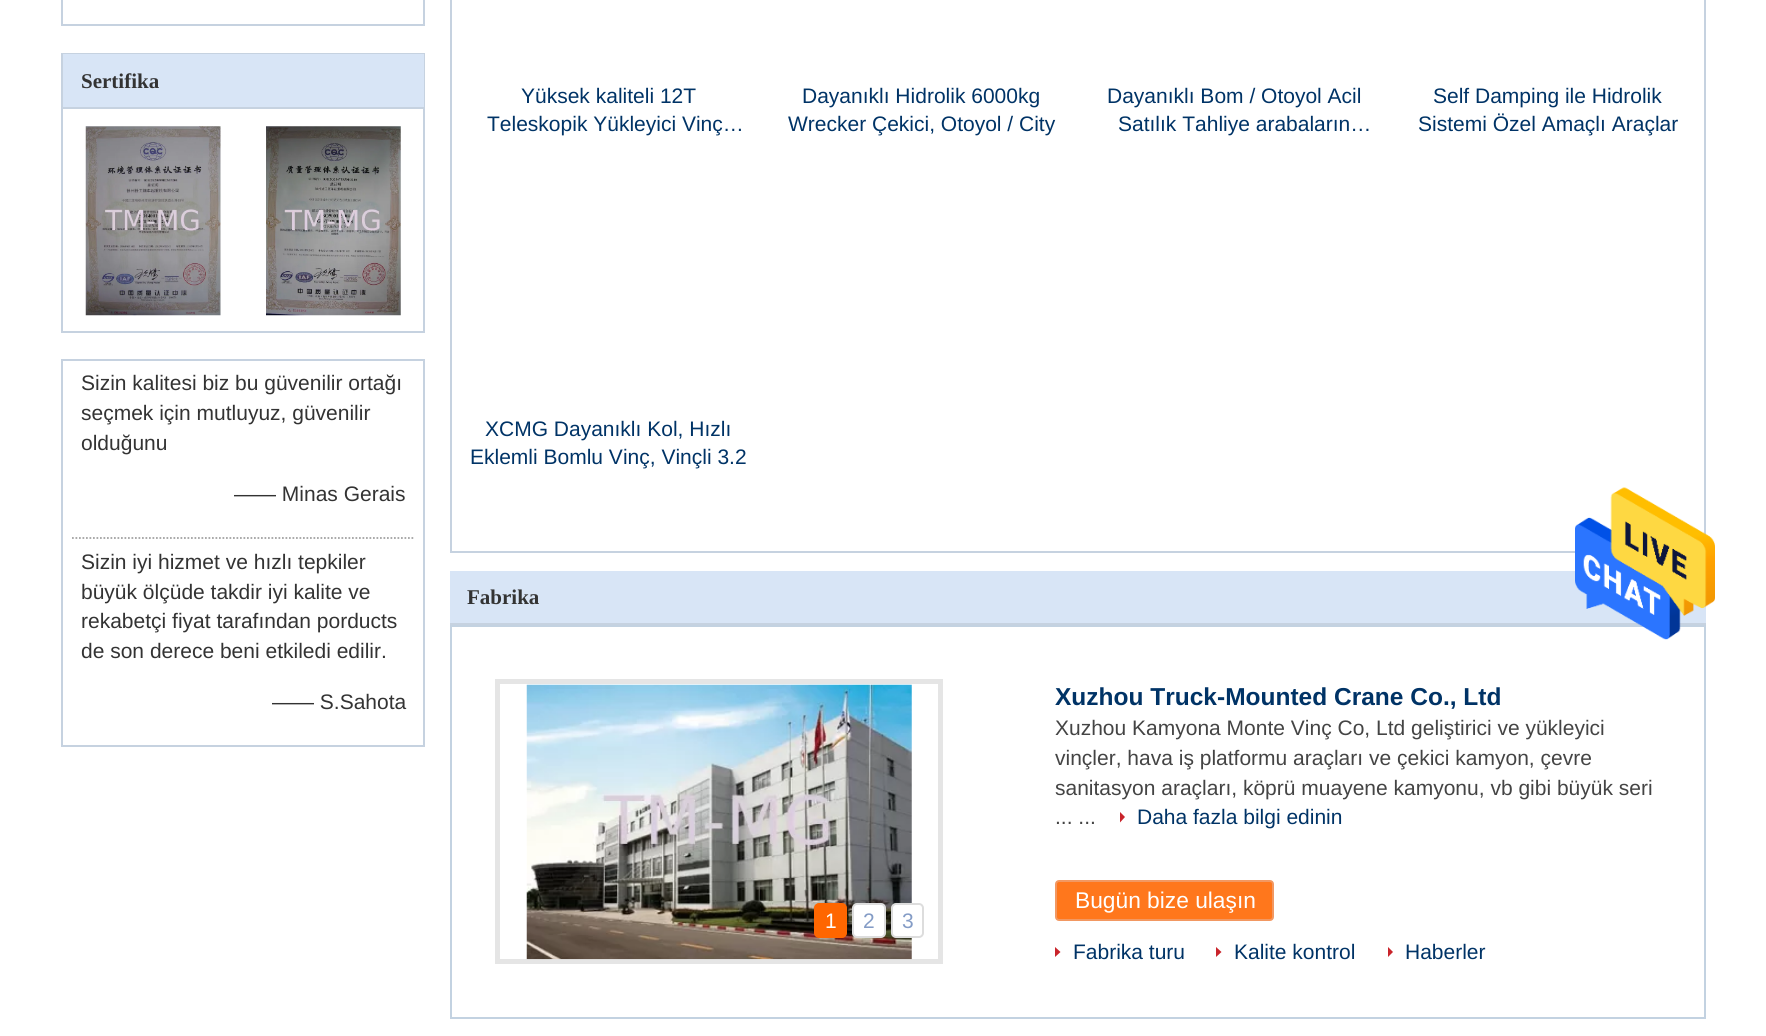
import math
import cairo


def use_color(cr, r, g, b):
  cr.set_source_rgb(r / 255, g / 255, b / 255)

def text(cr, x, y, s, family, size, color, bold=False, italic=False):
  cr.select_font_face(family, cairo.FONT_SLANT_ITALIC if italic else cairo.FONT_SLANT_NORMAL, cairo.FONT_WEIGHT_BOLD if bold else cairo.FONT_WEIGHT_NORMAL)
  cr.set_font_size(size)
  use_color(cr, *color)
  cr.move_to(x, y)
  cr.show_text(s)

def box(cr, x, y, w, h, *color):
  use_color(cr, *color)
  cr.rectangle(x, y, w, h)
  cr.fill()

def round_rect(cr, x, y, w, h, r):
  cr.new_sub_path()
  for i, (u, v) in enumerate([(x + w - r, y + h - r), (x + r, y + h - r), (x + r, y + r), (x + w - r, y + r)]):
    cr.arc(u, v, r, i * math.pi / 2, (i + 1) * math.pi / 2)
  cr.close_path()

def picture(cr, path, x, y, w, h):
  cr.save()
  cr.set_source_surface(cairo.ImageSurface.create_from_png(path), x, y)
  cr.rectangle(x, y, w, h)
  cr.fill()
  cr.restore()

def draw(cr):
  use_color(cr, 255, 255, 255)
  cr.paint()
  cr.rectangle(62, -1, 362, 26)
  use_color(cr, 198, 210, 224)
  cr.stroke()
  cr.rectangle(62, 54, 362, 278)
  cr.stroke()
  box(cr, 63, 54, 361, 53, 216, 229, 246)
  box(cr, 63, 107, 361, 2, 198, 210, 224)
  picture(cr, "img_01.png", 85, 126, 136, 190)
  picture(cr, "img_02.png", 266, 126, 135, 190)
  cr.rectangle(62, 360, 362, 386)
  cr.stroke()
  cr.new_path()
  cr.move_to(72, 538)
  cr.line_to(415, 538)
  use_color(cr, 162, 162, 162)
  cr.set_line_width(1.8)
  cr.set_dash([1.75, 1.75])
  cr.stroke()
  cr.rectangle(451, -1, 1254, 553)
  use_color(cr, 198, 210, 224)
  cr.set_line_width(2)
  cr.set_dash([])
  cr.stroke()
  box(cr, 450, 571, 1256, 52, 216, 229, 246)
  box(cr, 450, 623, 1256, 2, 198, 210, 224)
  cr.rectangle(451, 626, 1254, 392)
  use_color(cr, 195, 210, 225)
  cr.stroke()
  cr.rectangle(497.5, 681.5, 443, 280)
  use_color(cr, 229, 229, 229)
  cr.set_line_width(5)
  cr.stroke()
  picture(cr, "img_03.png", 526, 684, 386, 276)
  use_color(cr, 255, 102, 0)
  round_rect(cr, 815, 904, 31, 33, 4)
  cr.fill_preserve()
  cr.set_line_width(2)
  cr.stroke()
  use_color(cr, 255, 255, 255)
  round_rect(cr, 853, 904, 32, 33, 4)
  cr.fill_preserve()
  use_color(cr, 221, 221, 221)
  cr.stroke()
  use_color(cr, 255, 255, 255)
  round_rect(cr, 892, 904, 31, 33, 4)
  cr.fill_preserve()
  use_color(cr, 221, 221, 221)
  cr.stroke()
  use_color(cr, 201, 36, 43)
  cr.new_path()
  cr.move_to(1120, 822.5)
  cr.line_to(1120, 812)
  cr.line_to(1125, 817)
  cr.close_path()
  cr.fill()
  use_color(cr, 255, 119, 28)
  round_rect(cr, 1056, 881, 217, 39, 3)
  cr.fill_preserve()
  use_color(cr, 242, 152, 98)
  cr.stroke()
  use_color(cr, 201, 36, 43)
  cr.new_path()
  cr.move_to(1055, 957)
  cr.line_to(1055, 947)
  cr.line_to(1060.5, 952)
  cr.close_path()
  cr.fill()
  cr.new_path()
  cr.move_to(1216, 957)
  cr.line_to(1216, 947)
  cr.line_to(1221.5, 952)
  cr.close_path()
  cr.fill()
  cr.new_path()
  cr.move_to(1388, 957)
  cr.line_to(1388, 947)
  cr.line_to(1393, 952)
  cr.close_path()
  cr.fill()
  picture(cr, "img_04.png", 1575, 487, 140, 153)
  text(cr, 81, 88, "Sertifika", "Liberation Serif", 21, (51, 51, 51), bold=True)
  text(cr, 81, 390, "Sizin kalitesi biz bu güvenilir ortağı", "Liberation Sans", 21, (51, 51, 51))
  text(cr, 81, 420, "seçmek için mutluyuz, güvenilir", "Liberation Sans", 21, (51, 51, 51))
  text(cr, 81, 450, "olduğunu", "Liberation Sans", 21, (51, 51, 51))
  text(cr, 234, 501, "—— Minas Gerais", "Liberation Sans", 21, (51, 51, 51))
  text(cr, 81, 569, "Sizin iyi hizmet ve hızlı tepkiler", "Liberation Sans", 21, (51, 51, 51))
  text(cr, 81, 599, "büyük ölçüde takdir iyi kalite ve", "Liberation Sans", 21, (51, 51, 51))
  text(cr, 81, 628, "rekabetçi fiyat tarafından porducts", "Liberation Sans", 21, (51, 51, 51))
  text(cr, 81, 658, "de son derece beni etkiledi edilir.", "Liberation Sans", 21, (51, 51, 51))
  text(cr, 272, 709, "—— S.Sahota", "Liberation Sans", 21, (51, 51, 51))
  text(cr, 521, 103, "Yüksek kaliteli 12T", "Liberation Sans", 21, (0, 51, 102))
  text(cr, 487, 131, "Teleskopik Yükleyici Vinç…", "Liberation Sans", 21, (0, 51, 102))
  text(cr, 802, 103, "Dayanıklı Hidrolik 6000kg", "Liberation Sans", 21, (0, 51, 102))
  text(cr, 788, 131, "Wrecker Çekici, Otoyol / City", "Liberation Sans", 21, (0, 51, 102))
  text(cr, 1107, 103, "Dayanıklı Bom / Otoyol Acil", "Liberation Sans", 21, (0, 51, 102))
  text(cr, 1118, 131, "Satılık Tahliye arabaların…", "Liberation Sans", 21, (0, 51, 102))
  text(cr, 1433, 103, "Self Damping ile Hidrolik", "Liberation Sans", 21, (0, 51, 102))
  text(cr, 1418, 131, "Sistemi Özel Amaçlı Araçlar", "Liberation Sans", 21, (0, 51, 102))
  text(cr, 485, 436, "XCMG Dayanıklı Kol, Hızlı", "Liberation Sans", 21, (0, 51, 102))
  text(cr, 470, 464, "Eklemli Bomlu Vinç, Vinçli 3.2", "Liberation Sans", 21, (0, 51, 102))
  text(cr, 467, 604, "Fabrika", "Liberation Serif", 21, (51, 51, 51), bold=True)
  text(cr, 825, 928, "1", "Liberation Sans", 21, (255, 255, 255))
  text(cr, 863, 928, "2", "Liberation Sans", 21, (132, 156, 198))
  text(cr, 902, 928, "3", "Liberation Sans", 21, (132, 156, 198))
  text(cr, 1055, 705, "Xuzhou Truck-Mounted Crane Co., Ltd", "Liberation Sans", 24.5, (0, 51, 102), bold=True)
  text(cr, 1055, 735, "Xuzhou Kamyona Monte Vinç Co, Ltd geliştirici ve yükleyici", "Liberation Sans", 21, (68, 68, 68))
  text(cr, 1055, 765, "vinçler, hava iş platformu araçları ve çekici kamyon, çevre", "Liberation Sans", 21, (68, 68, 68))
  text(cr, 1055, 795, "sanitasyon araçları, köprü muayene kamyonu, vb gibi büyük seri", "Liberation Sans", 21, (68, 68, 68))
  text(cr, 1055, 824, "... ...", "Liberation Sans", 21, (68, 68, 68))
  text(cr, 1137, 824, "Daha fazla bilgi edinin", "Liberation Sans", 21, (0, 51, 102))
  text(cr, 1075, 908, "Bugün bize ulaşın", "Liberation Sans", 22.75, (255, 255, 255))
  text(cr, 1073, 959, "Fabrika turu", "Liberation Sans", 21, (0, 51, 102))
  text(cr, 1234, 959, "Kalite kontrol", "Liberation Sans", 21, (0, 51, 102))
  text(cr, 1405, 959, "Haberler", "Liberation Sans", 21, (0, 51, 102))


surface = cairo.ImageSurface(cairo.FORMAT_RGB24, 1766, 1036)
cr = cairo.Context(surface)
options = cairo.FontOptions()
options.set_hint_metrics(cairo.HINT_METRICS_OFF)
options.set_hint_style(cairo.HINT_STYLE_NONE)
cr.set_font_options(options)
cr.set_miter_limit(4)
draw(cr)
surface.write_to_png("out.png")
